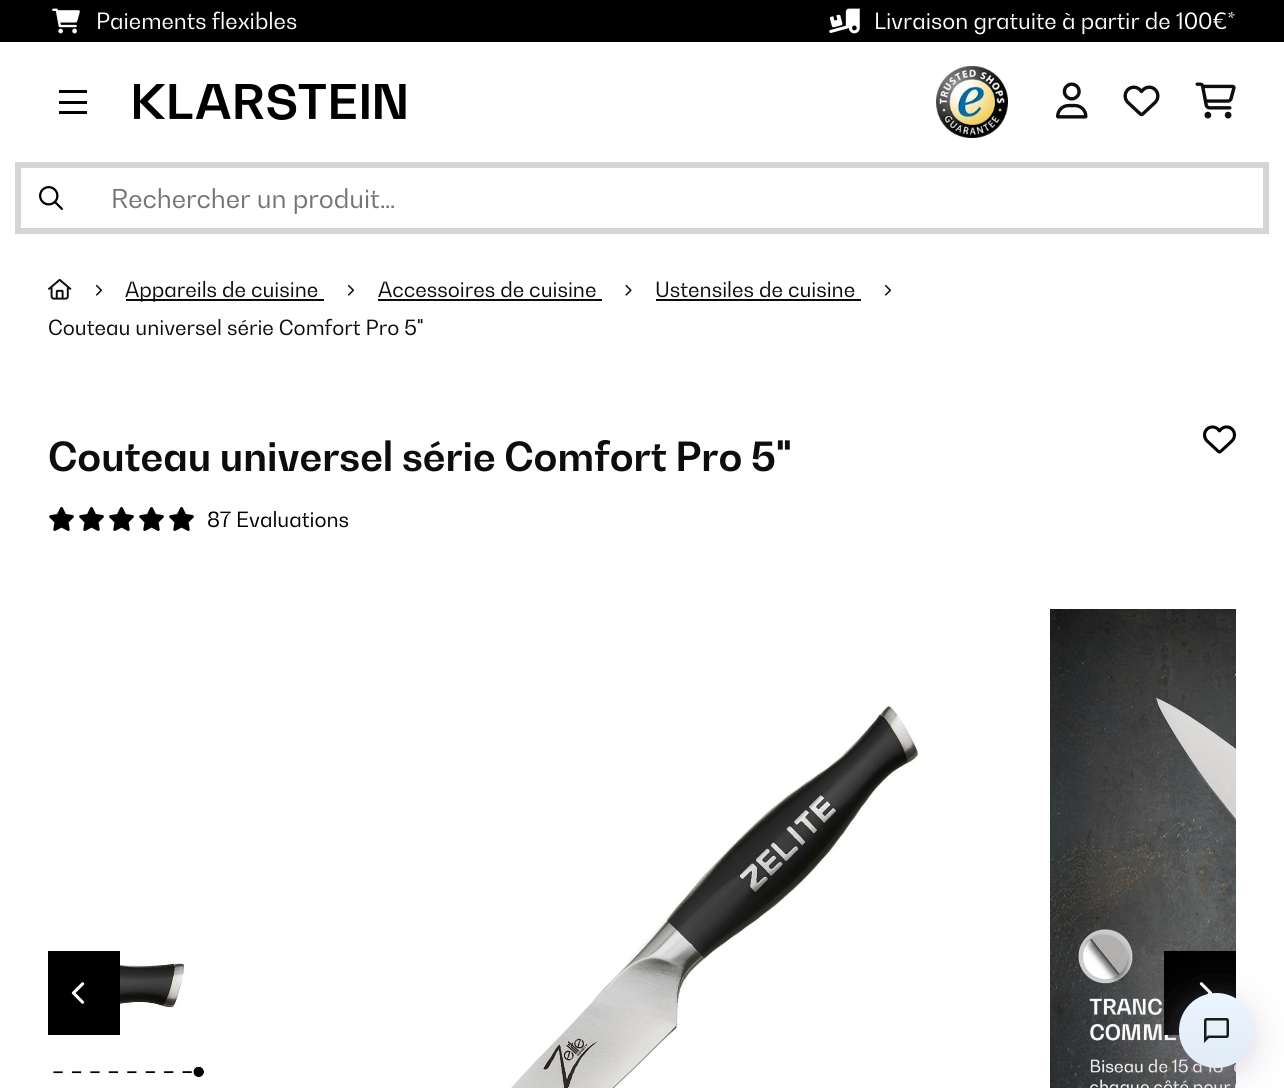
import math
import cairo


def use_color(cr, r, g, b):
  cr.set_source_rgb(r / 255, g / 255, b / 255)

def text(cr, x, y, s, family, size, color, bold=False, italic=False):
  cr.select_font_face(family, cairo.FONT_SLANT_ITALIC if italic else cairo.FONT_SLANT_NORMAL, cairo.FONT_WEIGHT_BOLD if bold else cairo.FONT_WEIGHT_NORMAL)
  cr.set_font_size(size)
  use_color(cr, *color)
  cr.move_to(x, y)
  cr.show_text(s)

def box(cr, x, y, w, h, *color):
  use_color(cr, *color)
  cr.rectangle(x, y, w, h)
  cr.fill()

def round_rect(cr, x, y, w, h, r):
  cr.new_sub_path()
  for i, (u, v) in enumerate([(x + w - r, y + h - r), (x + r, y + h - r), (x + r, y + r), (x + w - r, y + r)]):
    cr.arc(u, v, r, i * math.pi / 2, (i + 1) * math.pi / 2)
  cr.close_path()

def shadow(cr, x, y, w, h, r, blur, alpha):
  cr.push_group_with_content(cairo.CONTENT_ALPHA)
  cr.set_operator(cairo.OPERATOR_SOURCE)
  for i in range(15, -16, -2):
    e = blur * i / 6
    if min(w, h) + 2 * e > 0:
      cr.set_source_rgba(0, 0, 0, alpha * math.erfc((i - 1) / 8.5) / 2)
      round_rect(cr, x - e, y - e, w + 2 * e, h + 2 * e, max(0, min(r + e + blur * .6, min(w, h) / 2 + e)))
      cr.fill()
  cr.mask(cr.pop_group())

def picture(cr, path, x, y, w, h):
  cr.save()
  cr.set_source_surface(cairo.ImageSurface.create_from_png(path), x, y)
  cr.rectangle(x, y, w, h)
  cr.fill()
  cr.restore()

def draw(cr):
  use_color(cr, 255, 255, 255)
  cr.paint()
  box(cr, 0, 0, 1284, 42, 0, 0, 0)
  picture(cr, "img_01.png", 52, 8, 28, 26)
  picture(cr, "img_02.png", 829, 8, 31, 26)
  box(cr, 59, 90, 28, 3, 0, 0, 0)
  box(cr, 59, 101, 28, 3, 0, 0, 0)
  box(cr, 59, 111, 28, 3, 0, 0, 0)
  picture(cr, "img_03.png", 134, 84, 272, 36)
  picture(cr, "img_04.png", 936, 66, 72, 72)
  picture(cr, "img_05.png", 1056, 82, 32, 37)
  picture(cr, "img_06.png", 1123, 85, 37, 32)
  picture(cr, "img_07.png", 1195, 82, 41, 37)
  cr.rectangle(18, 165, 1248, 66)
  use_color(cr, 213, 213, 213)
  cr.set_line_width(6)
  cr.stroke()
  picture(cr, "img_08.png", 39, 186, 24, 24)
  picture(cr, "img_09.png", 48, 278, 24, 22)
  picture(cr, "img_10.png", 96, 284, 7, 12)
  box(cr, 126, 299, 198, 2, 13, 13, 13)
  picture(cr, "img_10.png", 348, 284, 7, 12)
  box(cr, 378, 299, 224, 2, 13, 13, 13)
  picture(cr, "img_11.png", 625, 284, 7, 12)
  box(cr, 656, 299, 205, 2, 13, 13, 13)
  picture(cr, "img_10.png", 885, 284, 7, 12)
  picture(cr, "img_12.png", 1203, 425, 33, 29)
  picture(cr, "img_13.png", 49, 507, 25, 24)
  picture(cr, "img_13.png", 79, 507, 25, 24)
  picture(cr, "img_13.png", 109, 507, 25, 24)
  picture(cr, "img_13.png", 139, 507, 25, 24)
  picture(cr, "img_13.png", 169, 507, 25, 24)
  picture(cr, "img_14.png", 48, 955, 157, 122)
  picture(cr, "img_15.png", 511, 705, 408, 383)
  picture(cr, "img_16.png", 1050, 609, 186, 479)
  box(cr, 48, 951, 72, 84, 0, 0, 0)
  picture(cr, "img_17.png", 71, 982, 14, 22)
  box(cr, 1164, 951, 72, 84, 0, 0, 0)
  picture(cr, "img_18.png", 1199, 982, 14, 13)
  use_color(cr, 203, 195, 212)
  shadow(cr, 1179, 1001, 75, 75, 37.5, 24, 0.2)
  use_color(cr, 151, 124, 156)
  shadow(cr, 1179, 1001, 75, 75, 37.5, 13.5, 0.2)
  gradient = cairo.LinearGradient(1220, 990, 1213, 1071)
  gradient.add_color_stop_rgba(0, 0.918, 0.961, 1, 1)
  gradient.add_color_stop_rgba(1, 0.878, 0.922, 0.961, 1)
  cr.set_source(gradient)
  cr.arc(1216.5, 1030.5, 37.5, 0, 2 * math.pi)
  cr.fill()
  picture(cr, "img_19.png", 1204, 1018, 25, 25)
  text(cr, 96, 29, "Paiements flexibles", "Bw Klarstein", 22.3, (255, 255, 255))
  text(cr, 874, 29, "Livraison gratuite à partir de 100€*", "Bw Klarstein", 22.3, (255, 255, 255))
  text(cr, 111, 208, "Rechercher un produit…", "Bw Klarstein", 25.75, (117, 117, 117))
  text(cr, 125, 297, "Appareils de cuisine", "Bw Klarstein", 20.75, (13, 13, 13))
  text(cr, 378, 297, "Accessoires de cuisine", "Bw Klarstein", 20.75, (13, 13, 13))
  text(cr, 655, 297, "Ustensiles de cuisine", "Bw Klarstein", 20.75, (13, 13, 13))
  text(cr, 48, 335, "Couteau universel série Comfort Pro 5\"", "Bw Klarstein", 20.75, (13, 13, 13))
  text(cr, 48, 471, "Couteau universel série Comfort Pro 5\"", "Bw Klarstein", 39.8, (13, 13, 13), bold=True)
  text(cr, 207, 527, "87 Evaluations", "Bw Klarstein", 20.75, (0, 0, 0))


surface = cairo.ImageSurface(cairo.FORMAT_RGB24, 1284, 1088)
cr = cairo.Context(surface)
options = cairo.FontOptions()
options.set_hint_metrics(cairo.HINT_METRICS_OFF)
options.set_hint_style(cairo.HINT_STYLE_NONE)
cr.set_font_options(options)
cr.set_miter_limit(4)
draw(cr)
surface.write_to_png("out.png")
